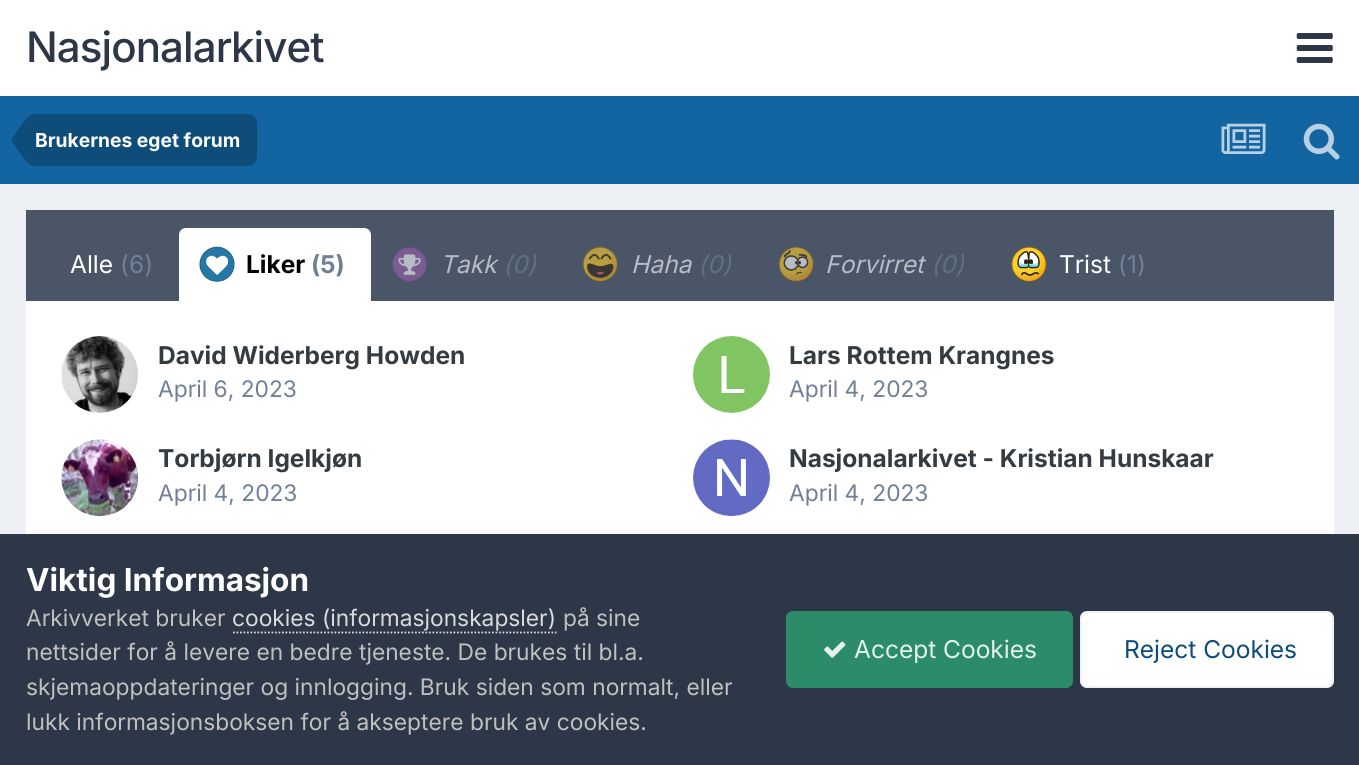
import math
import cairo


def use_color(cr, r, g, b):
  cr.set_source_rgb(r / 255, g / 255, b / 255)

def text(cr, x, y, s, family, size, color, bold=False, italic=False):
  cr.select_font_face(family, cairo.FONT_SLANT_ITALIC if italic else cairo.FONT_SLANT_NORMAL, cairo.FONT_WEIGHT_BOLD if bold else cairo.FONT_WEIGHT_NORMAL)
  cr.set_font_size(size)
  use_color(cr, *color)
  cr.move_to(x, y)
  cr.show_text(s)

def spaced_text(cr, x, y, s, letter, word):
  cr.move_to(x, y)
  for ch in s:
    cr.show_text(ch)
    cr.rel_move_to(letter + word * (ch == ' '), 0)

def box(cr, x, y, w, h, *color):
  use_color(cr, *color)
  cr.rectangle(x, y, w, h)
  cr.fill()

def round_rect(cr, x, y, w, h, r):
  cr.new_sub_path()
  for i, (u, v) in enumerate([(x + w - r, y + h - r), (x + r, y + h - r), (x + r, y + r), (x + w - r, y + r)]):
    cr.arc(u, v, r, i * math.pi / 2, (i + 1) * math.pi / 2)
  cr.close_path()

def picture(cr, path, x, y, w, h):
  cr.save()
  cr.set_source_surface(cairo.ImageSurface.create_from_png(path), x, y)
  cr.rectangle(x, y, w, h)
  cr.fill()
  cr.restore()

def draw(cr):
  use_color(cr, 237, 240, 244)
  cr.paint()
  box(cr, 0, 0, 1359, 96, 255, 255, 255)
  picture(cr, "img_01.png", 1296, 33, 37, 30)
  box(cr, 0, 96, 1359, 88, 18, 101, 161)
  use_color(cr, 14, 76, 121)
  cr.new_path()
  cr.move_to(35, 114)
  cr.line_to(248, 114)
  cr.curve_to(253, 114, 257, 118, 257, 123)
  cr.line_to(257, 157)
  cr.curve_to(257, 162, 253, 166, 248, 166)
  cr.line_to(35, 166)
  cr.close_path()
  cr.fill()
  cr.new_path()
  cr.move_to(35, 140)
  cr.line_to(35, 166)
  cr.curve_to(31, 166, 27.5, 164, 25, 160)
  cr.line_to(12.5, 142.5)
  cr.line_to(12, 140)
  cr.close_path()
  cr.move_to(35, 140)
  cr.line_to(12, 140)
  cr.line_to(12.5, 137.5)
  cr.line_to(25, 120)
  cr.curve_to(27.5, 116, 31, 114, 35, 114)
  cr.close_path()
  cr.fill()
  picture(cr, "img_02.png", 1221, 123, 45, 31)
  picture(cr, "img_03.png", 1303, 123, 37, 37)
  box(cr, 26, 210, 1308, 91, 74, 85, 104)
  use_color(cr, 255, 255, 255)
  cr.new_path()
  cr.move_to(186, 228)
  cr.line_to(364, 228)
  cr.curve_to(368, 228, 371, 231, 371, 235)
  cr.line_to(371, 301)
  cr.line_to(179, 301)
  cr.line_to(179, 235)
  cr.curve_to(179, 231, 182, 228, 186, 228)
  cr.close_path()
  cr.fill()
  picture(cr, "img_04.png", 199, 246, 36, 36)
  picture(cr, "img_05.png", 392, 246, 35, 36)
  picture(cr, "img_06.png", 582, 246, 36, 36)
  picture(cr, "img_07.png", 778, 246, 36, 36)
  picture(cr, "img_08.png", 1011, 246, 36, 36)
  box(cr, 26, 301, 1308, 233, 255, 255, 255)
  picture(cr, "img_09.png", 61, 336, 77, 77)
  picture(cr, "img_10.png", 693, 336, 77, 77)
  picture(cr, "img_11.png", 61, 439, 78, 78)
  picture(cr, "img_12.png", 693, 439, 77, 77)
  box(cr, 0, 534, 1359, 231, 45, 55, 72)
  cr.new_path()
  cr.move_to(233, 632.5)
  cr.line_to(556.5, 632.5)
  use_color(cr, 218, 218, 218)
  cr.set_line_width(1.8)
  cr.set_dash([1.75, 1.75])
  cr.stroke()
  use_color(cr, 44, 140, 105)
  round_rect(cr, 786, 611, 287, 77, 7)
  cr.fill()
  picture(cr, "img_13.png", 824, 641, 22, 17)
  use_color(cr, 255, 255, 255)
  round_rect(cr, 1080, 611, 254, 77, 7)
  cr.fill()
  round_rect(cr, 1081, 612, 252, 75, 6)
  cr.set_source_rgba(0.055, 0.298, 0.475, 0.07)
  cr.set_line_width(2)
  cr.set_dash([])
  cr.stroke()
  cr.select_font_face("Inter Medium")
  cr.set_font_size(42)
  use_color(cr, 45, 55, 72)
  spaced_text(cr, 26, 62, "Nasjonalarkivet", -0.9, 0)
  text(cr, 35, 147, "Brukernes eget forum", "Inter", 19.25, (255, 255, 255), bold=True)
  text(cr, 70, 273, "Alle", "Inter", 24.5, (255, 255, 255))
  text(cr, 120, 273, "(6)", "Inter", 24.5, (113, 128, 150))
  text(cr, 246, 273, "Liker", "Inter", 24.5, (0, 0, 0), bold=True)
  text(cr, 311, 273, "(5)", "Inter", 24.5, (113, 128, 150), bold=True)
  text(cr, 440, 273, "Takk", "Inter", 24.5, (183, 187, 195), italic=True)
  text(cr, 503, 273, "(0)", "Inter", 24.5, (97, 111, 132), italic=True)
  text(cr, 631, 273, "Haha", "Inter", 24.5, (183, 187, 195), italic=True)
  text(cr, 698, 273, "(0)", "Inter", 24.5, (97, 111, 132), italic=True)
  text(cr, 825, 273, "Forvirret", "Inter", 24.5, (183, 187, 195), italic=True)
  text(cr, 931, 273, "(0)", "Inter", 24.5, (97, 111, 132), italic=True)
  text(cr, 1059, 273, "Trist", "Inter", 24.5, (255, 255, 255))
  text(cr, 1118, 273, "(1)", "Inter", 24.5, (113, 128, 150))
  text(cr, 158, 364, "David Widerberg Howden", "Inter", 24.5, (53, 60, 65), bold=True)
  text(cr, 158, 397, "April 6, 2023", "Inter", 22.75, (113, 128, 150))
  text(cr, 789, 364, "Lars Rottem Krangnes", "Inter", 24.5, (53, 60, 65), bold=True)
  text(cr, 789, 397, "April 4, 2023", "Inter", 22.75, (113, 128, 150))
  text(cr, 158, 467, "Torbjørn Igelkjøn", "Inter", 24.5, (53, 60, 65), bold=True)
  text(cr, 158, 501, "April 4, 2023", "Inter", 22.75, (113, 128, 150))
  text(cr, 789, 467, "Nasjonalarkivet - Kristian Hunskaar", "Inter", 24.5, (53, 60, 65), bold=True)
  text(cr, 789, 501, "April 4, 2023", "Inter", 22.75, (113, 128, 150))
  text(cr, 26, 591, "Viktig Informasjon", "Inter", 31.5, (255, 255, 255), bold=True)
  text(cr, 26, 626, "Arkivverket bruker", "Inter", 22.75, (192, 192, 192))
  text(cr, 232, 626, "cookies (informasjonskapsler)", "Inter", 22.75, (218, 218, 218))
  text(cr, 563, 626, "på sine", "Inter", 22.75, (192, 192, 192))
  text(cr, 26, 660, "nettsider for å levere en bedre tjeneste. De brukes til bl.a.", "Inter", 22.75, (192, 192, 192))
  text(cr, 26, 695, "skjemaoppdateringer og innlogging. Bruk siden som normalt, eller", "Inter", 22.75, (192, 192, 192))
  text(cr, 26, 730, "lukk informasjonsboksen for å akseptere bruk av cookies.", "Inter", 22.75, (192, 192, 192))
  text(cr, 854, 658, "Accept Cookies", "Inter", 24.5, (227, 243, 236))
  text(cr, 1124, 658, "Reject Cookies", "Inter", 24.5, (14, 76, 121))


surface = cairo.ImageSurface(cairo.FORMAT_RGB24, 1359, 765)
cr = cairo.Context(surface)
options = cairo.FontOptions()
options.set_hint_metrics(cairo.HINT_METRICS_OFF)
options.set_hint_style(cairo.HINT_STYLE_NONE)
cr.set_font_options(options)
cr.set_miter_limit(4)
draw(cr)
surface.write_to_png("out.png")
